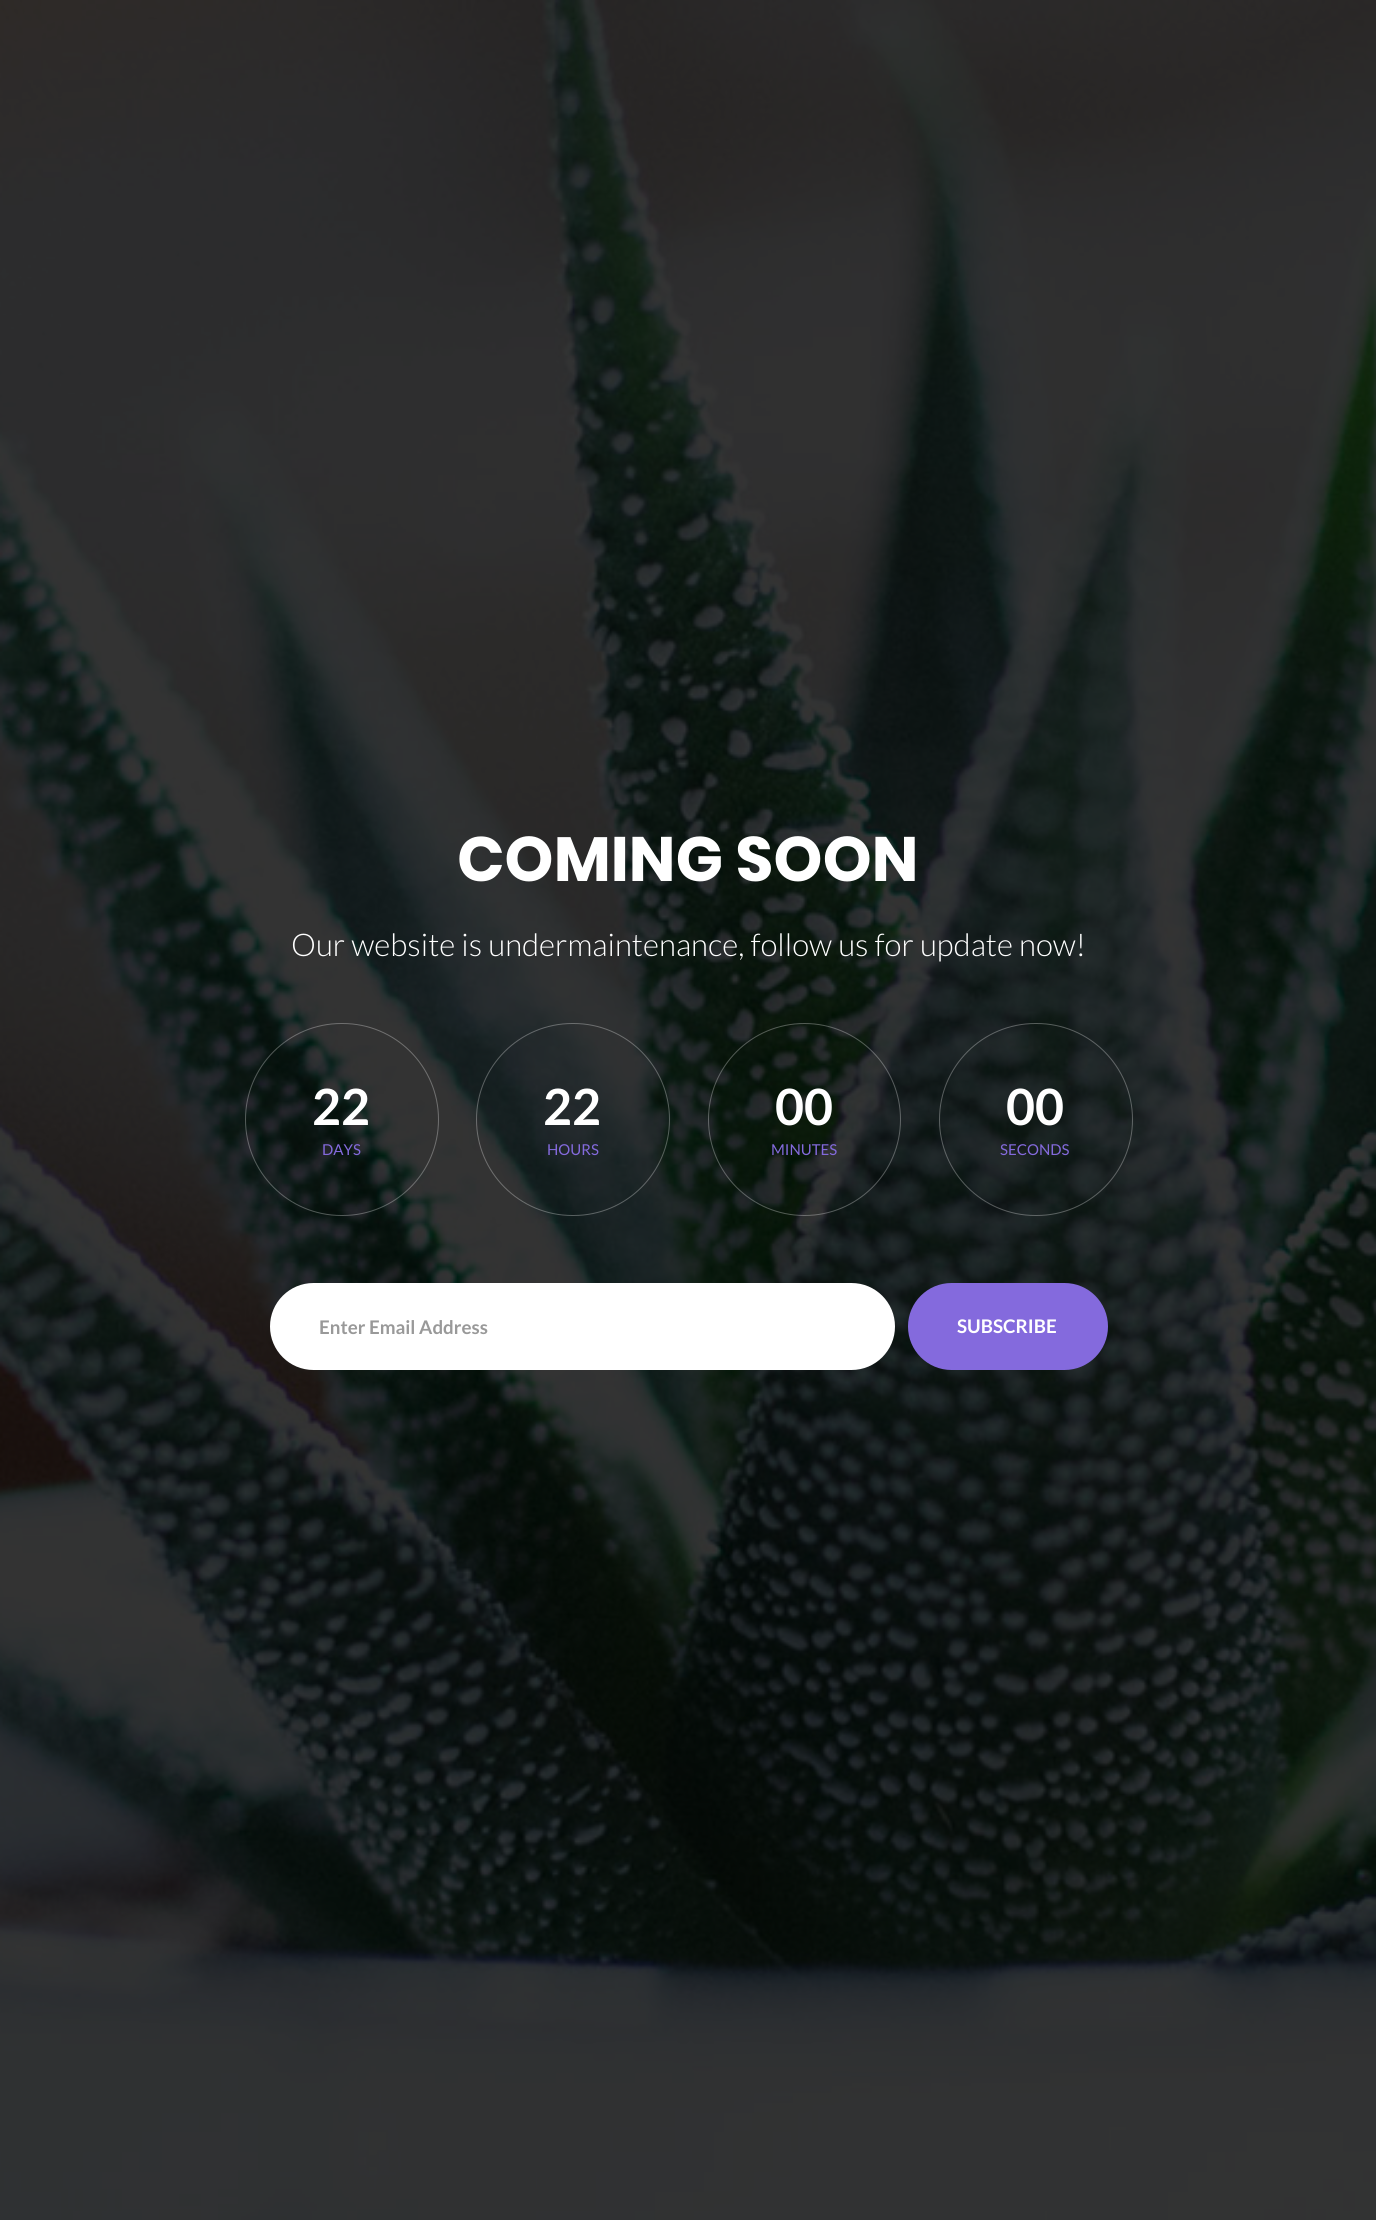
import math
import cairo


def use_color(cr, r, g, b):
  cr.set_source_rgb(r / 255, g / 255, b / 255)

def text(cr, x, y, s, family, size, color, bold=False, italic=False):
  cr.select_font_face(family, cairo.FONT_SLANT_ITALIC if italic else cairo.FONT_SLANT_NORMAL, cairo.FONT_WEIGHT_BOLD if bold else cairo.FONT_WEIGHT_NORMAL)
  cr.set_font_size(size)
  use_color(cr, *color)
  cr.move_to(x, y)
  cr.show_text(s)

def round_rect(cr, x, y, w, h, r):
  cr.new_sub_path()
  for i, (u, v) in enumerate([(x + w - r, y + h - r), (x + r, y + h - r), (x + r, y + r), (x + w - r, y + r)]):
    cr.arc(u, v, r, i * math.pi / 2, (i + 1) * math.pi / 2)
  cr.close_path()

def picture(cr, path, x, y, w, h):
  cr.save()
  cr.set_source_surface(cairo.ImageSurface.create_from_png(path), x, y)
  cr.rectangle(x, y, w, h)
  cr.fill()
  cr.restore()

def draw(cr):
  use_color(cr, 255, 255, 255)
  cr.paint()
  picture(cr, "img_01.png", 0, 0, 1376, 2220)
  round_rect(cr, 245.5, 1023.5, 193, 192, 96)
  cr.set_source_rgba(1, 1, 1, 0.3)
  cr.set_line_width(1)
  cr.stroke()
  round_rect(cr, 476.5, 1023.5, 193, 192, 96)
  cr.stroke()
  cr.arc(804.5, 1119.5, 96, 0, 2 * math.pi)
  cr.stroke()
  round_rect(cr, 939.5, 1023.5, 193, 192, 96)
  cr.stroke()
  use_color(cr, 255, 255, 255)
  round_rect(cr, 270, 1283, 625, 87, 43.5)
  cr.fill()
  use_color(cr, 132, 106, 221)
  round_rect(cr, 908, 1283, 200, 87, 43.5)
  cr.fill()
  text(cr, 457, 881, "COMING SOON", "Poppins", 62.5, (255, 255, 255), bold=True)
  text(cr, 291, 956, "Our website is undermaintenance, follow us for update now!", "Lato Light", 31.25, (255, 255, 255))
  text(cr, 312, 1125, "22", "Lato", 50, (255, 255, 255), bold=True)
  text(cr, 322, 1155, "DAYS", "Lato", 15, (132, 106, 221))
  text(cr, 543, 1125, "22", "Lato", 50, (255, 255, 255), bold=True)
  text(cr, 547, 1155, "HOURS", "Lato", 15, (132, 106, 221))
  text(cr, 775, 1125, "00", "Lato", 50, (255, 255, 255), bold=True)
  text(cr, 771, 1155, "MINUTES", "Lato", 15, (132, 106, 221))
  text(cr, 1006, 1125, "00", "Lato", 50, (255, 255, 255), bold=True)
  text(cr, 1000, 1155, "SECONDS", "Lato", 15, (132, 106, 221))
  text(cr, 319, 1334, "Enter Email Address", "Lato", 18.75, (153, 153, 153), bold=True)
  text(cr, 957, 1333, "SUBSCRIBE", "Lato", 18.75, (255, 255, 255), bold=True)


surface = cairo.ImageSurface(cairo.FORMAT_RGB24, 1376, 2220)
cr = cairo.Context(surface)
options = cairo.FontOptions()
options.set_hint_metrics(cairo.HINT_METRICS_OFF)
options.set_hint_style(cairo.HINT_STYLE_NONE)
cr.set_font_options(options)
cr.set_miter_limit(4)
draw(cr)
surface.write_to_png("out.png")
